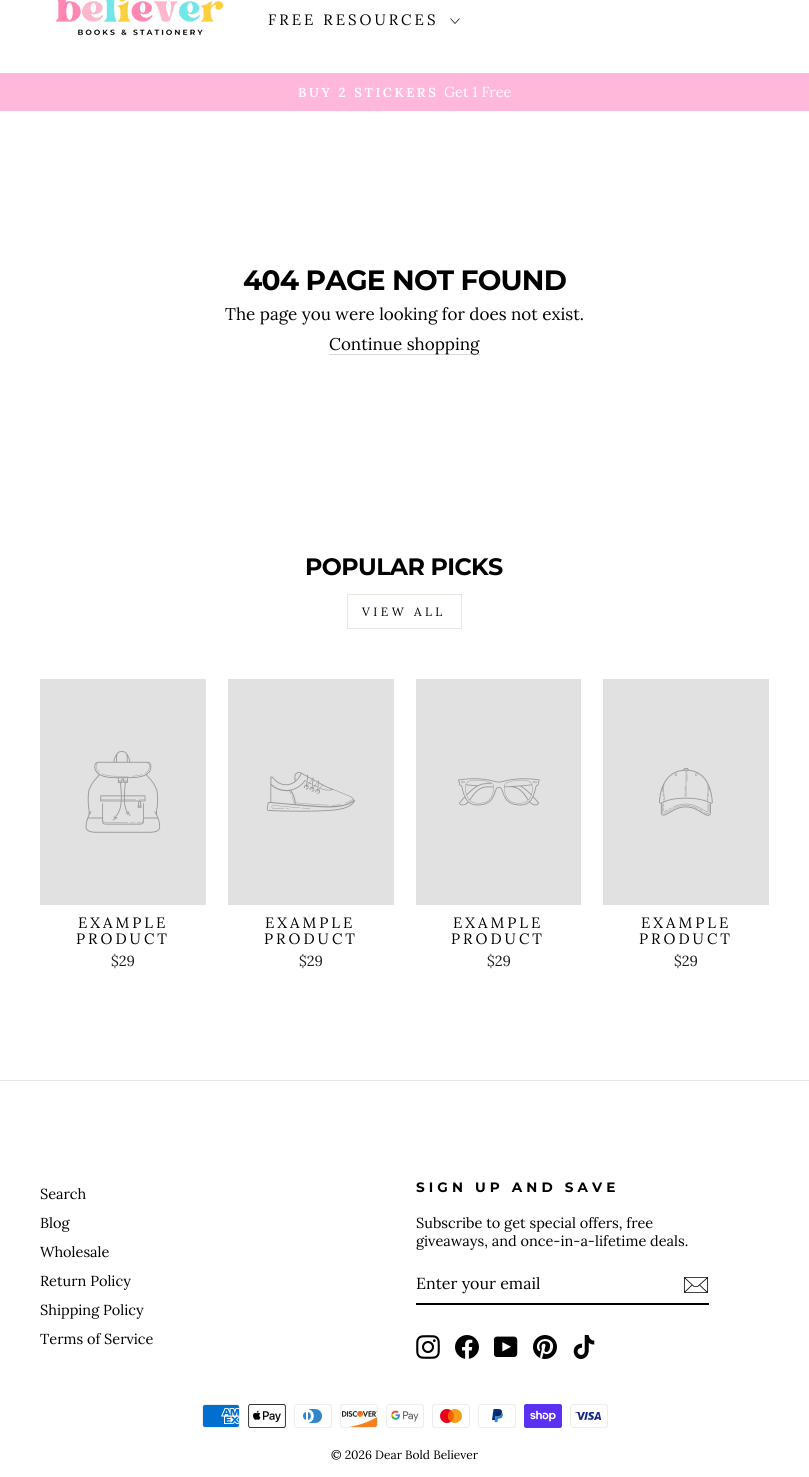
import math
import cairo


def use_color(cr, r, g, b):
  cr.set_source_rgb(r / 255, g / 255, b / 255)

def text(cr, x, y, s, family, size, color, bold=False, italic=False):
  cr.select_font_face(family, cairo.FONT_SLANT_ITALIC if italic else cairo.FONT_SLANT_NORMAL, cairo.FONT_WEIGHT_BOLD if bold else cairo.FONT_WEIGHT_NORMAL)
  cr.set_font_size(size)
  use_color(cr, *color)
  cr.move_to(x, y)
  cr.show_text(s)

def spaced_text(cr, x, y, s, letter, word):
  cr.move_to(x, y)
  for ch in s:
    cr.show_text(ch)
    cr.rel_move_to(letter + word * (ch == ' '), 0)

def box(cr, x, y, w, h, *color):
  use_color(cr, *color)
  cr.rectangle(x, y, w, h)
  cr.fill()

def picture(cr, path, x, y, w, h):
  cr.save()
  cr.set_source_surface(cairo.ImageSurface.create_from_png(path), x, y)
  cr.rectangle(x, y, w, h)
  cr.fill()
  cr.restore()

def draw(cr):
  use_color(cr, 255, 255, 255)
  cr.paint()
  picture(cr, "img_01.png", 55, 0, 169, 36)
  cr.new_path()
  cr.move_to(450.5, 18.5)
  cr.line_to(455, 23.5)
  cr.line_to(459.5, 18.5)
  use_color(cr, 0, 0, 0)
  cr.set_line_width(0.7)
  cr.stroke()
  box(cr, 0, 73, 809, 38, 255, 183, 218)
  box(cr, 329, 354, 151, 1, 217, 217, 217)
  cr.rectangle(347.5, 594.5, 114, 34)
  use_color(cr, 232, 232, 225)
  cr.set_line_width(1)
  cr.stroke()
  box(cr, 40, 679, 166, 226, 225, 225, 225)
  picture(cr, "img_02.png", 85, 751, 76, 82)
  box(cr, 228, 679, 166, 226, 225, 225, 225)
  picture(cr, "img_03.png", 266, 772, 89, 40)
  box(cr, 416, 679, 165, 226, 225, 225, 225)
  picture(cr, "img_04.png", 458, 778, 82, 28)
  box(cr, 603, 679, 166, 226, 225, 225, 225)
  picture(cr, "img_05.png", 659, 767, 54, 49)
  box(cr, 0, 1080, 809, 1, 232, 232, 225)
  box(cr, 416, 1303, 293, 2, 0, 0, 0)
  picture(cr, "img_06.png", 683, 1277, 26, 16)
  picture(cr, "img_07.png", 416, 1335, 24, 24)
  picture(cr, "img_08.png", 455, 1335, 24, 24)
  picture(cr, "img_09.png", 494, 1336, 24, 21)
  picture(cr, "img_10.png", 533, 1335, 24, 24)
  picture(cr, "img_11.png", 573, 1335, 22, 24)
  picture(cr, "img_12.png", 202, 1404, 38, 24)
  picture(cr, "img_13.png", 248, 1404, 38, 24)
  picture(cr, "img_14.png", 294, 1404, 38, 24)
  picture(cr, "img_15.png", 340, 1404, 38, 24)
  picture(cr, "img_16.png", 386, 1404, 38, 24)
  picture(cr, "img_17.png", 432, 1404, 38, 24)
  picture(cr, "img_18.png", 478, 1404, 38, 24)
  picture(cr, "img_19.png", 524, 1404, 38, 24)
  picture(cr, "img_20.png", 570, 1404, 38, 24)
  cr.select_font_face("Lora")
  cr.set_font_size(15)
  spaced_text(cr, 268, 25, "FREE RESOURCES", 3, 0)
  cr.select_font_face("Lora SemiBold")
  cr.set_font_size(13)
  use_color(cr, 255, 255, 255)
  spaced_text(cr, 298, 97, "BUY 2 STICKERS", 2.6, 0)
  text(cr, 444, 97, "Get 1 Free", "Lora", 14.5, (255, 255, 255))
  cr.select_font_face("Montserrat", cairo.FONT_SLANT_NORMAL, cairo.FONT_WEIGHT_BOLD)
  cr.set_font_size(28)
  use_color(cr, 0, 0, 0)
  spaced_text(cr, 243, 290, "404 PAGE NOT FOUND", -0.75, 0)
  text(cr, 225, 320, "The page you were looking for does not exist.", "Lora", 17, (0, 0, 0))
  text(cr, 329, 350, "Continue shopping", "Lora", 17, (0, 0, 0))
  cr.select_font_face("Montserrat", cairo.FONT_SLANT_NORMAL, cairo.FONT_WEIGHT_BOLD)
  cr.set_font_size(23.75)
  spaced_text(cr, 305, 575, "POPULAR PICKS", -0.6, 0)
  cr.select_font_face("Lora")
  cr.set_font_size(12)
  spaced_text(cr, 362, 616, "VIEW ALL", 3.5, 0)
  cr.set_font_size(15)
  spaced_text(cr, 78, 928, "EXAMPLE", 3, 0)
  spaced_text(cr, 76, 944, "PRODUCT", 3, 0)
  text(cr, 111, 966, "$29", "Lora", 14.5, (28, 29, 29))
  cr.set_font_size(15)
  use_color(cr, 0, 0, 0)
  spaced_text(cr, 265, 928, "EXAMPLE", 3, 0)
  spaced_text(cr, 264, 944, "PRODUCT", 3, 0)
  text(cr, 299, 966, "$29", "Lora", 14.5, (28, 29, 29))
  cr.set_font_size(15)
  use_color(cr, 0, 0, 0)
  spaced_text(cr, 453, 928, "EXAMPLE", 3, 0)
  spaced_text(cr, 451, 944, "PRODUCT", 3, 0)
  text(cr, 487, 966, "$29", "Lora", 14.5, (28, 29, 29))
  cr.set_font_size(15)
  use_color(cr, 0, 0, 0)
  spaced_text(cr, 641, 928, "EXAMPLE", 3, 0)
  spaced_text(cr, 639, 944, "PRODUCT", 3, 0)
  text(cr, 674, 966, "$29", "Lora", 14.5, (28, 29, 29))
  text(cr, 40, 1199, "Search", "Lora", 14.5, (0, 0, 0))
  text(cr, 40, 1228, "Blog", "Lora", 14.5, (0, 0, 0))
  text(cr, 40, 1257, "Wholesale", "Lora", 14.5, (0, 0, 0))
  text(cr, 40, 1286, "Return Policy", "Lora", 14.5, (0, 0, 0))
  text(cr, 40, 1315, "Shipping Policy", "Lora", 14.5, (0, 0, 0))
  text(cr, 40, 1344, "Terms of Service", "Lora", 14.5, (0, 0, 0))
  cr.select_font_face("Montserrat", cairo.FONT_SLANT_NORMAL, cairo.FONT_WEIGHT_BOLD)
  cr.set_font_size(13.6)
  spaced_text(cr, 416, 1192, "SIGN UP AND SAVE", 4.1, 0)
  text(cr, 416, 1228, "Subscribe to get special offers, free", "Lora", 14.5, (0, 0, 0))
  text(cr, 416, 1246, "giveaways, and once-in-a-lifetime deals.", "Lora", 14.5, (0, 0, 0))
  text(cr, 416, 1289, "Enter your email", "Lora", 16, (0, 0, 0))
  text(cr, 331, 1459, "© 2026 Dear Bold Believer", "Lora", 12, (0, 0, 0))


surface = cairo.ImageSurface(cairo.FORMAT_RGB24, 809, 1477)
cr = cairo.Context(surface)
options = cairo.FontOptions()
options.set_hint_metrics(cairo.HINT_METRICS_OFF)
options.set_hint_style(cairo.HINT_STYLE_NONE)
cr.set_font_options(options)
cr.set_miter_limit(4)
draw(cr)
surface.write_to_png("out.png")
